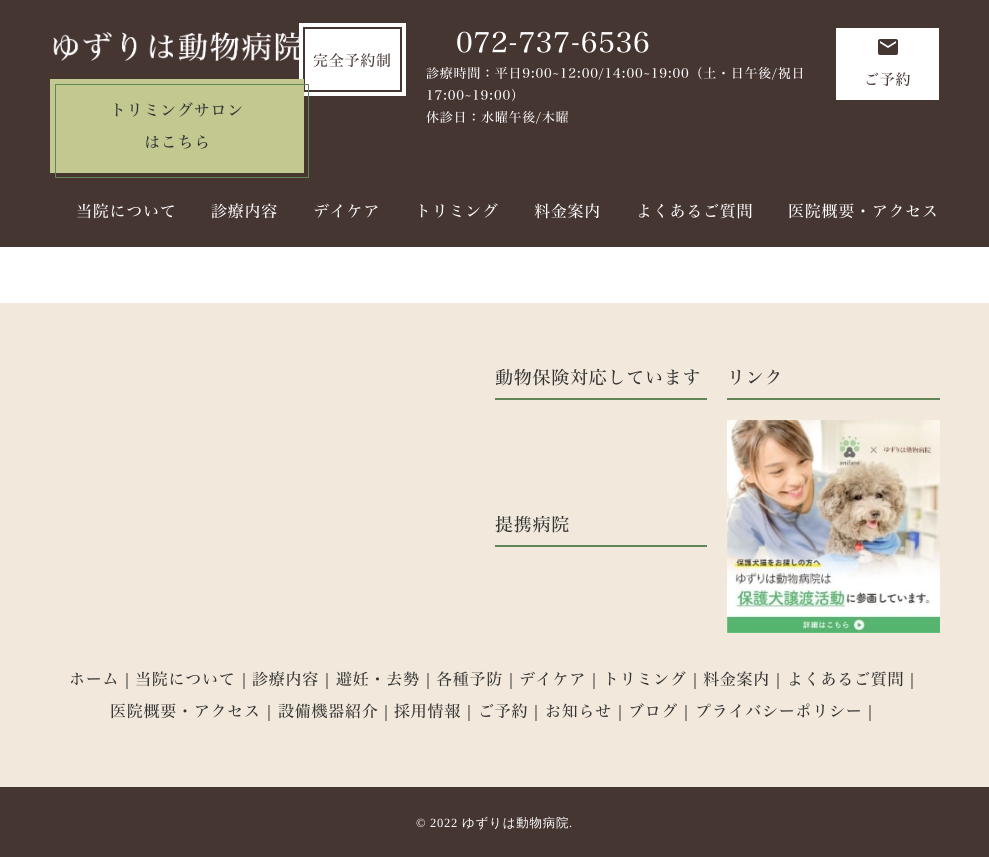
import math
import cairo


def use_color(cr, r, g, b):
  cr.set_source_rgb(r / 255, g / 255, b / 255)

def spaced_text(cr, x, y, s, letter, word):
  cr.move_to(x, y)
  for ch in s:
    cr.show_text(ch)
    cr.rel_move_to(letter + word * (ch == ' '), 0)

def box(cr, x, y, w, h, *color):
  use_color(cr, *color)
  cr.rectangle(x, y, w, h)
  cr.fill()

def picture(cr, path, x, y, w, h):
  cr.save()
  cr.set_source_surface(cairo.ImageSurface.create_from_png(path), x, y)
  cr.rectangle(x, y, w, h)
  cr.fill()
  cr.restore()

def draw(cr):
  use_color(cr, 255, 255, 255)
  cr.paint()
  box(cr, 0, 0, 989, 247, 70, 54, 50)
  picture(cr, "img_01.png", 53, 32, 246, 29)
  box(cr, 305, 29, 95, 61, 255, 255, 255)
  cr.rectangle(301, 25, 103, 69)
  cr.set_line_width(4)
  cr.stroke()
  box(cr, 50, 79, 254, 94, 194, 200, 144)
  cr.rectangle(55.5, 84.5, 253, 93)
  use_color(cr, 96, 134, 88)
  cr.set_line_width(1)
  cr.stroke()
  box(cr, 836, 28, 103, 72, 255, 255, 255)
  picture(cr, "img_02.png", 878, 39, 20, 16)
  box(cr, 0, 303, 989, 484, 242, 233, 220)
  box(cr, 495, 398, 212, 2, 96, 134, 88)
  box(cr, 495, 545, 212, 2, 96, 134, 88)
  box(cr, 727, 398, 213, 2, 96, 134, 88)
  picture(cr, "img_03.png", 727, 420, 213, 213)
  box(cr, 0, 787, 989, 70, 70, 54, 50)
  cr.select_font_face("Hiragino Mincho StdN")
  cr.set_font_size(16)
  use_color(cr, 51, 51, 51)
  spaced_text(cr, 110, 116, "トリミングサロン", 0.75, 0)
  spaced_text(cr, 144, 148, "はこちら", 0.75, 0)
  cr.set_font_size(15)
  use_color(cr, 70, 54, 50)
  spaced_text(cr, 313, 66, "完全予約制", 0.75, 0)
  cr.set_font_size(28)
  use_color(cr, 255, 255, 255)
  spaced_text(cr, 456, 53, "072-737-6536", 0.75, 0)
  cr.set_font_size(13)
  spaced_text(cr, 426, 78, "診療時間：平日9:00~12:00/14:00~19:00（土・日午後/祝日", 0.75, 0)
  spaced_text(cr, 426, 100, "17:00~19:00）", 0.75, 0)
  spaced_text(cr, 426, 122, "休診日：水曜午後/木曜", 0.75, 0)
  cr.set_font_size(15)
  use_color(cr, 70, 54, 50)
  spaced_text(cr, 864, 85, "ご予約", 0.75, 0)
  cr.set_font_size(16)
  use_color(cr, 255, 255, 255)
  spaced_text(cr, 76, 217, "当院について", 0.75, 0)
  spaced_text(cr, 211, 217, "診療内容", 0.75, 0)
  spaced_text(cr, 313, 217, "デイケア", 0.75, 0)
  spaced_text(cr, 415, 217, "トリミング", 0.75, 0)
  spaced_text(cr, 534, 217, "料金案内", 0.75, 0)
  spaced_text(cr, 636, 217, "よくあるご質問", 0.75, 0)
  spaced_text(cr, 788, 217, "医院概要・アクセス", 0.75, 0)
  cr.set_font_size(18)
  use_color(cr, 51, 51, 51)
  spaced_text(cr, 495, 384, "動物保険対応しています", 0.75, 0)
  spaced_text(cr, 495, 531, "提携病院", 0.75, 0)
  spaced_text(cr, 727, 384, "リンク", 0.75, 0)
  cr.set_font_size(16)
  spaced_text(cr, 69, 685, "ホーム", 0.75, 0)
  cr.select_font_face("WenQuanYi Zen Hei Medium")
  spaced_text(cr, 119, 685, "｜", 0.75, 0)
  cr.select_font_face("Hiragino Mincho StdN")
  spaced_text(cr, 135, 685, "当院について", 0.75, 0)
  cr.select_font_face("WenQuanYi Zen Hei Medium")
  spaced_text(cr, 236, 685, "｜", 0.75, 0)
  cr.select_font_face("Hiragino Mincho StdN")
  spaced_text(cr, 252, 685, "診療内容", 0.75, 0)
  cr.select_font_face("WenQuanYi Zen Hei Medium")
  spaced_text(cr, 319, 685, "｜", 0.75, 0)
  cr.select_font_face("Hiragino Mincho StdN")
  spaced_text(cr, 336, 685, "避妊・去勢", 0.75, 0)
  cr.select_font_face("WenQuanYi Zen Hei Medium")
  spaced_text(cr, 420, 685, "｜", 0.75, 0)
  cr.select_font_face("Hiragino Mincho StdN")
  spaced_text(cr, 436, 685, "各種予防", 0.75, 0)
  cr.select_font_face("WenQuanYi Zen Hei Medium")
  spaced_text(cr, 503, 685, "｜", 0.75, 0)
  cr.select_font_face("Hiragino Mincho StdN")
  spaced_text(cr, 519, 685, "デイケア", 0.75, 0)
  cr.select_font_face("WenQuanYi Zen Hei Medium")
  spaced_text(cr, 586, 685, "｜", 0.75, 0)
  cr.select_font_face("Hiragino Mincho StdN")
  spaced_text(cr, 603, 685, "トリミング", 0.75, 0)
  cr.select_font_face("WenQuanYi Zen Hei Medium")
  spaced_text(cr, 687, 685, "｜", 0.75, 0)
  cr.select_font_face("Hiragino Mincho StdN")
  spaced_text(cr, 703, 685, "料金案内", 0.75, 0)
  cr.select_font_face("WenQuanYi Zen Hei Medium")
  spaced_text(cr, 770, 685, "｜", 0.75, 0)
  cr.select_font_face("Hiragino Mincho StdN")
  spaced_text(cr, 787, 685, "よくあるご質問", 0.75, 0)
  cr.select_font_face("WenQuanYi Zen Hei Medium")
  spaced_text(cr, 904, 685, "｜", 0.75, 0)
  cr.select_font_face("Hiragino Mincho StdN")
  spaced_text(cr, 110, 717, "医院概要・アクセス", 0.75, 0)
  cr.select_font_face("WenQuanYi Zen Hei Medium")
  spaced_text(cr, 261, 717, "｜", 0.75, 0)
  cr.select_font_face("Hiragino Mincho StdN")
  spaced_text(cr, 278, 717, "設備機器紹介", 0.75, 0)
  cr.select_font_face("WenQuanYi Zen Hei Medium")
  spaced_text(cr, 378, 717, "｜", 0.75, 0)
  cr.select_font_face("Hiragino Mincho StdN")
  spaced_text(cr, 394, 717, "採用情報", 0.75, 0)
  cr.select_font_face("WenQuanYi Zen Hei Medium")
  spaced_text(cr, 461, 717, "｜", 0.75, 0)
  cr.select_font_face("Hiragino Mincho StdN")
  spaced_text(cr, 478, 717, "ご予約", 0.75, 0)
  cr.select_font_face("WenQuanYi Zen Hei Medium")
  spaced_text(cr, 528, 717, "｜", 0.75, 0)
  cr.select_font_face("Hiragino Mincho StdN")
  spaced_text(cr, 545, 717, "お知らせ", 0.75, 0)
  cr.select_font_face("WenQuanYi Zen Hei Medium")
  spaced_text(cr, 612, 717, "｜", 0.75, 0)
  cr.select_font_face("Hiragino Mincho StdN")
  spaced_text(cr, 628, 717, "ブログ", 0.75, 0)
  cr.select_font_face("WenQuanYi Zen Hei Medium")
  spaced_text(cr, 678, 717, "｜", 0.75, 0)
  cr.select_font_face("Hiragino Mincho StdN")
  spaced_text(cr, 695, 717, "プライバシーポリシー", 0.75, 0)
  cr.select_font_face("WenQuanYi Zen Hei Medium")
  spaced_text(cr, 862, 717, "｜", 0.75, 0)
  cr.select_font_face("Liberation Serif")
  cr.set_font_size(12.5)
  use_color(cr, 255, 255, 255)
  spaced_text(cr, 416, 827, "© 2022", 0.75, 0)
  cr.select_font_face("WenQuanYi Zen Hei Medium")
  spaced_text(cr, 462, 827, "ゆずりは動物病院", 0.75, 0)
  cr.select_font_face("Liberation Serif")
  spaced_text(cr, 569, 827, ".", 0.75, 0)


surface = cairo.ImageSurface(cairo.FORMAT_RGB24, 989, 857)
cr = cairo.Context(surface)
options = cairo.FontOptions()
options.set_hint_metrics(cairo.HINT_METRICS_OFF)
options.set_hint_style(cairo.HINT_STYLE_NONE)
cr.set_font_options(options)
cr.set_miter_limit(4)
draw(cr)
surface.write_to_png("out.png")
